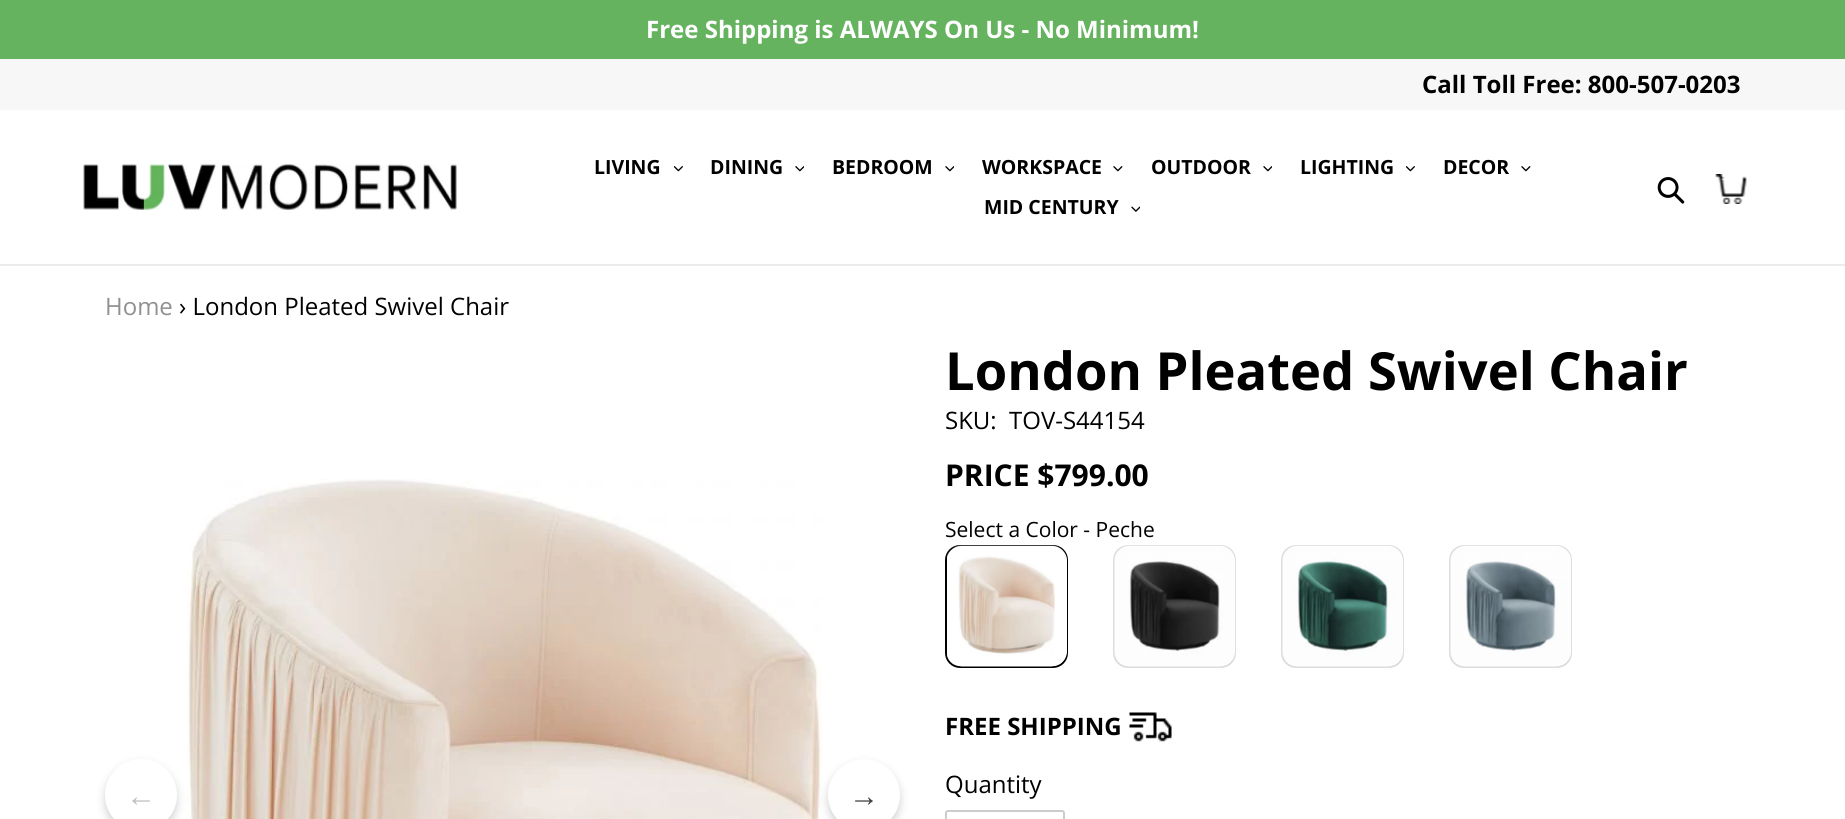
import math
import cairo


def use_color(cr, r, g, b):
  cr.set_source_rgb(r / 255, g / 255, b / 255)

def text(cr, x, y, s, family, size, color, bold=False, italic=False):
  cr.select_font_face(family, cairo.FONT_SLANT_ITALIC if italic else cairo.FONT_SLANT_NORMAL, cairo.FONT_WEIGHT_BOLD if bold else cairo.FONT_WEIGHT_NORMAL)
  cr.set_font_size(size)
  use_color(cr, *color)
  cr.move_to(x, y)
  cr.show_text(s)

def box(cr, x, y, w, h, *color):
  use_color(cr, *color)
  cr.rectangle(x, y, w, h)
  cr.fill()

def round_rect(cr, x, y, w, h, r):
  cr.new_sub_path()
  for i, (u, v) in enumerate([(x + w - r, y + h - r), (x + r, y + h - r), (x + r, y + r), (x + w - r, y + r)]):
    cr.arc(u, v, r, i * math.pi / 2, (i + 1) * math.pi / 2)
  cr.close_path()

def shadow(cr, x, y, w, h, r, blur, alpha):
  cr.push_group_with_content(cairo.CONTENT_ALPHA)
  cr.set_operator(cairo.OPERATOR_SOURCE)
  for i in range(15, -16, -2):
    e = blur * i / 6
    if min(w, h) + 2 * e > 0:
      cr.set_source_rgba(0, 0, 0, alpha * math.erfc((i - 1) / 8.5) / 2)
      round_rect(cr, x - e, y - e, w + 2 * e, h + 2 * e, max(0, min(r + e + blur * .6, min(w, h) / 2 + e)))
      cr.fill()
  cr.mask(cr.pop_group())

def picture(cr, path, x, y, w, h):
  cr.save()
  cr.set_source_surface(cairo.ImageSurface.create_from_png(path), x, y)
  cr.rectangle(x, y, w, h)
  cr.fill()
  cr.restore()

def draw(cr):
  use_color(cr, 255, 255, 255)
  cr.paint()
  box(cr, 0, 0, 1845, 59, 102, 179, 95)
  box(cr, 0, 59, 1845, 51, 247, 247, 247)
  box(cr, 0, 264, 1845, 2, 235, 235, 235)
  picture(cr, "img_01.png", 83, 163, 374, 47)
  picture(cr, "img_02.png", 674, 166, 9, 6)
  picture(cr, "img_03.png", 795, 166, 9, 6)
  picture(cr, "img_03.png", 945, 166, 9, 6)
  picture(cr, "img_04.png", 1113, 166, 10, 6)
  picture(cr, "img_03.png", 1263, 166, 9, 6)
  picture(cr, "img_02.png", 1406, 166, 9, 6)
  picture(cr, "img_04.png", 1521, 166, 10, 6)
  picture(cr, "img_05.png", 1131, 206, 9, 6)
  picture(cr, "img_06.png", 1657, 177, 28, 27)
  picture(cr, "img_07.png", 1715, 174, 32, 30)
  round_rect(cr, 946, 546, 121, 121, 14)
  use_color(cr, 0, 0, 0)
  cr.stroke()
  use_color(cr, 255, 255, 255)
  round_rect(cr, 947, 546, 120, 120, 15)
  cr.fill()
  picture(cr, "img_08.png", 947, 545, 120, 122)
  round_rect(cr, 1114, 546, 121, 121, 14)
  use_color(cr, 221, 221, 221)
  cr.stroke()
  use_color(cr, 255, 255, 255)
  round_rect(cr, 1115, 546, 120, 120, 15)
  cr.fill()
  picture(cr, "img_09.png", 1114, 545, 120, 122)
  round_rect(cr, 1282, 546, 121, 121, 14)
  use_color(cr, 221, 221, 221)
  cr.stroke()
  use_color(cr, 255, 255, 255)
  round_rect(cr, 1283, 546, 120, 120, 15)
  cr.fill()
  picture(cr, "img_10.png", 1282, 545, 120, 122)
  round_rect(cr, 1450, 546, 121, 121, 14)
  use_color(cr, 221, 221, 221)
  cr.stroke()
  use_color(cr, 255, 255, 255)
  round_rect(cr, 1451, 546, 120, 120, 15)
  cr.fill()
  picture(cr, "img_11.png", 1450, 545, 121, 122)
  picture(cr, "img_12.png", 1129, 712, 43, 30)
  round_rect(cr, 946, 811, 118, 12, 2)
  use_color(cr, 204, 204, 204)
  cr.stroke()
  picture(cr, "img_13.png", 187, 479, 635, 340)
  use_color(cr, 34, 25, 36)
  shadow(cr, 105, 764, 72, 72, 36, 4.5, 0.2)
  use_color(cr, 255, 255, 255)
  cr.arc(141, 795, 36, 0, 2 * math.pi)
  cr.fill()
  use_color(cr, 34, 25, 36)
  shadow(cr, 828, 764, 72, 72, 36, 4.5, 0.2)
  use_color(cr, 255, 255, 255)
  cr.arc(864, 795, 36, 0, 2 * math.pi)
  cr.fill()
  text(cr, 646, 38, "Free Shipping is ALWAYS On Us - No Minimum!", "Open Sans", 24, (255, 255, 255), bold=True)
  text(cr, 1422, 93, "Call Toll Free: 800-507-0203", "Open Sans", 24, (0, 0, 0), bold=True)
  text(cr, 594, 174, "LIVING", "Open Sans", 19.5, (0, 0, 0), bold=True)
  text(cr, 710, 174, "DINING", "Open Sans", 19.5, (0, 0, 0), bold=True)
  text(cr, 832, 174, "BEDROOM", "Open Sans", 19.5, (0, 0, 0), bold=True)
  text(cr, 982, 174, "WORKSPACE", "Open Sans", 19.5, (0, 0, 0), bold=True)
  text(cr, 1151, 174, "OUTDOOR", "Open Sans", 19.5, (0, 0, 0), bold=True)
  text(cr, 1300, 174, "LIGHTING", "Open Sans", 19.5, (0, 0, 0), bold=True)
  text(cr, 1443, 174, "DECOR", "Open Sans", 19.5, (0, 0, 0), bold=True)
  text(cr, 984, 214, "MID CENTURY", "Open Sans", 19.5, (0, 0, 0), bold=True)
  text(cr, 105, 315, "Home", "Open Sans", 24, (144, 144, 144))
  text(cr, 179, 315, "› London Pleated Swivel Chair", "Open Sans", 24, (0, 0, 0))
  text(cr, 945, 390, "London Pleated Swivel Chair", "Open Sans", 52.5, (0, 0, 0), bold=True)
  text(cr, 945, 429, "SKU:", "Open Sans", 24, (0, 0, 0))
  text(cr, 1009, 429, "TOV-S44154", "Open Sans", 24, (0, 0, 0))
  text(cr, 945, 486, "PRICE $799.00", "Open Sans", 30, (0, 0, 0), bold=True)
  text(cr, 945, 537, "Select a Color - Peche", "Open Sans", 21, (0, 0, 0))
  text(cr, 945, 735, "FREE SHIPPING", "Open Sans", 24, (0, 0, 0), bold=True)
  text(cr, 945, 793, "Quantity", "Open Sans", 24, (0, 0, 0))
  text(cr, 126, 806, "←", "Liberation Serif", 30, (191, 191, 191))
  text(cr, 849, 806, "→", "Liberation Serif", 30, (64, 64, 64))


surface = cairo.ImageSurface(cairo.FORMAT_RGB24, 1845, 819)
cr = cairo.Context(surface)
options = cairo.FontOptions()
options.set_hint_metrics(cairo.HINT_METRICS_OFF)
options.set_hint_style(cairo.HINT_STYLE_NONE)
cr.set_font_options(options)
cr.set_miter_limit(4)
draw(cr)
surface.write_to_png("out.png")
